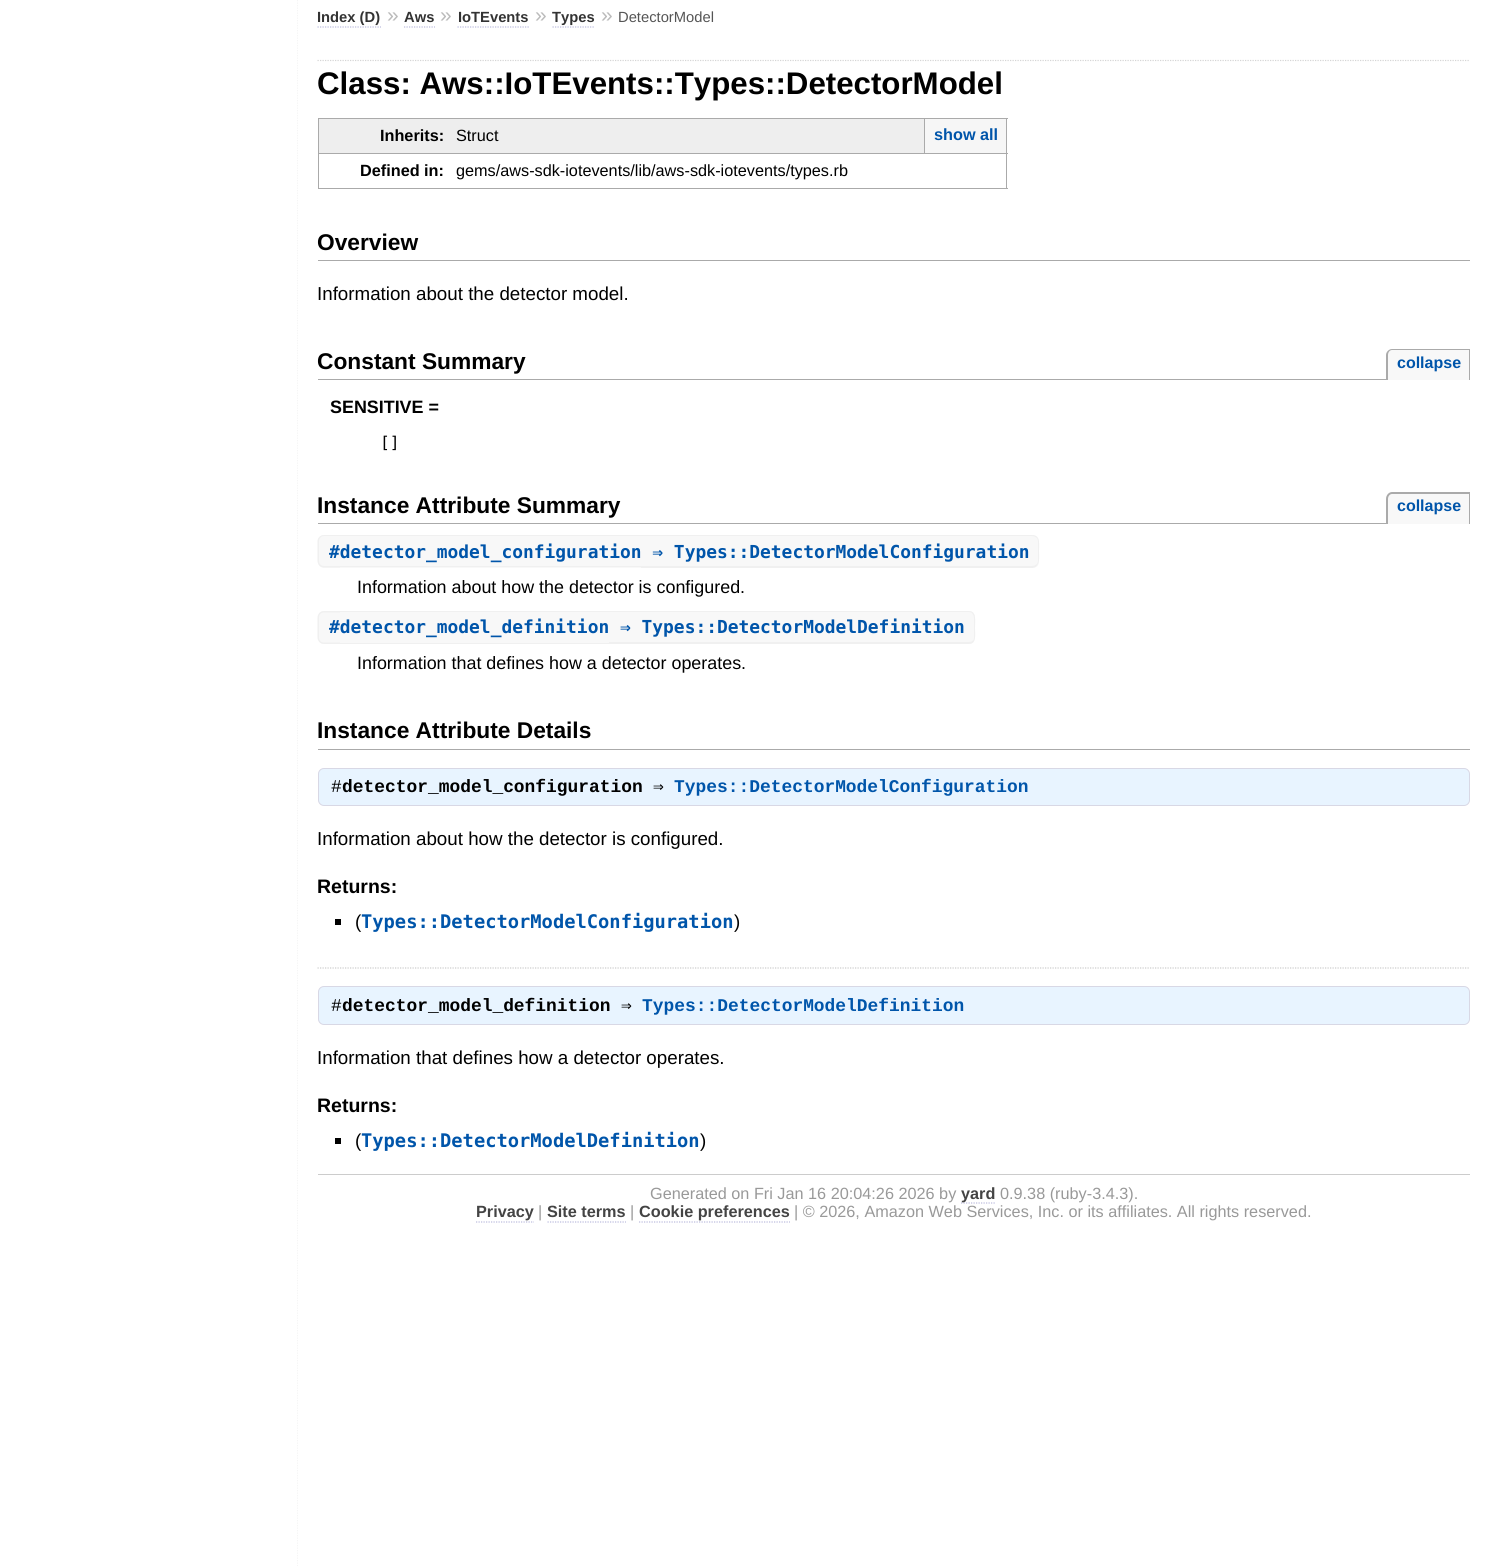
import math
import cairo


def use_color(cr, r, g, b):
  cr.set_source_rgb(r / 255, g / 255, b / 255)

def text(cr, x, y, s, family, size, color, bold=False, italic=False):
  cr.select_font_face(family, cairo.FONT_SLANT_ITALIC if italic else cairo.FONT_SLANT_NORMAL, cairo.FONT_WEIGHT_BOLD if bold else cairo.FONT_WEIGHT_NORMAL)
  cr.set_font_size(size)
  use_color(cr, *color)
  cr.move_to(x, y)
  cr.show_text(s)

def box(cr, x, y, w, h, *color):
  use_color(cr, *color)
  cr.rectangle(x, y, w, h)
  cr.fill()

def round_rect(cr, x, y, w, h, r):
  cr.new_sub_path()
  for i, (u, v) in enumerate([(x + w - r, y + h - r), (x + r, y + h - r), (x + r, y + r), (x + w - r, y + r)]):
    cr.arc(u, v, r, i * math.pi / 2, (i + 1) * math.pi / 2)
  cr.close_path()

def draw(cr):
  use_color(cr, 255, 255, 255)
  cr.paint()
  cr.new_path()
  cr.move_to(298, 0)
  cr.line_to(298, 1566)
  use_color(cr, 238, 238, 238)
  cr.set_line_width(1.2)
  cr.set_dash([1.25, 1.25])
  cr.stroke()
  box(cr, 298, 0, 1, 1566, 255, 255, 255)
  cr.new_path()
  cr.move_to(317.5, 27)
  cr.line_to(381, 27)
  use_color(cr, 187, 187, 221)
  cr.stroke()
  cr.new_path()
  cr.move_to(404, 27)
  cr.line_to(435, 27)
  cr.stroke()
  cr.new_path()
  cr.move_to(457.5, 27)
  cr.line_to(529, 27)
  cr.stroke()
  cr.new_path()
  cr.move_to(552.5, 27)
  cr.line_to(595, 27)
  cr.stroke()
  cr.new_path()
  cr.move_to(317.5, 60.5)
  cr.line_to(1470, 60.5)
  use_color(cr, 213, 213, 213)
  cr.stroke()
  box(cr, 319, 119, 605, 34, 238, 238, 238)
  box(cr, 318, 118, 690, 1, 170, 170, 170)
  box(cr, 318, 118, 1, 35, 170, 170, 170)
  box(cr, 318, 153, 690, 1, 170, 170, 170)
  box(cr, 1006, 118, 1, 71, 170, 170, 170)
  box(cr, 925, 119, 81, 34, 246, 246, 246)
  box(cr, 924, 119, 1, 34, 170, 170, 170)
  box(cr, 318, 188, 138, 1, 170, 170, 170)
  box(cr, 318, 153, 1, 36, 170, 170, 170)
  box(cr, 456, 188, 552, 1, 170, 170, 170)
  box(cr, 318, 260, 1152, 1, 170, 170, 170)
  box(cr, 318, 379, 1068, 1, 170, 170, 170)
  use_color(cr, 248, 248, 248)
  cr.new_path()
  cr.move_to(1392, 349)
  cr.line_to(1470, 349)
  cr.line_to(1470, 380)
  cr.line_to(1386, 380)
  cr.line_to(1386, 355)
  cr.curve_to(1386, 351.5, 1388.5, 349, 1392, 349)
  cr.close_path()
  cr.fill()
  use_color(cr, 170, 170, 170)
  cr.set_fill_rule(cairo.FILL_RULE_EVEN_ODD)
  cr.new_path()
  cr.move_to(1392, 349)
  cr.line_to(1470, 349)
  cr.line_to(1470, 380)
  cr.line_to(1386, 380)
  cr.line_to(1386, 355)
  cr.curve_to(1386, 352, 1389, 349, 1392, 349)
  cr.close_path()
  cr.move_to(1392, 350)
  cr.line_to(1469, 350)
  cr.line_to(1469, 380)
  cr.line_to(1388, 380)
  cr.line_to(1388, 355)
  cr.curve_to(1388, 352, 1390, 350, 1392, 350)
  cr.close_path()
  cr.fill()
  box(cr, 318, 523, 1068, 1, 170, 170, 170)
  use_color(cr, 248, 248, 248)
  cr.new_path()
  cr.move_to(1392, 493)
  cr.line_to(1470, 493)
  cr.line_to(1470, 524)
  cr.line_to(1386, 524)
  cr.line_to(1386, 499)
  cr.curve_to(1386, 495.5, 1388.5, 493, 1392, 493)
  cr.close_path()
  cr.fill()
  use_color(cr, 170, 170, 170)
  cr.new_path()
  cr.move_to(1392, 492)
  cr.line_to(1470, 492)
  cr.line_to(1470, 524)
  cr.line_to(1386, 524)
  cr.line_to(1386, 499)
  cr.curve_to(1386, 495, 1389, 492, 1392, 492)
  cr.close_path()
  cr.move_to(1392, 494)
  cr.line_to(1469, 494)
  cr.line_to(1469, 524)
  cr.line_to(1388, 524)
  cr.line_to(1388, 499)
  cr.curve_to(1388, 496, 1390, 494, 1392, 494)
  cr.close_path()
  cr.fill()
  use_color(cr, 248, 248, 248)
  cr.new_path()
  cr.move_to(324, 535)
  cr.line_to(340, 535)
  cr.line_to(340, 568)
  cr.line_to(324, 568)
  cr.curve_to(320.5, 568, 318, 565.5, 318, 562)
  cr.line_to(318, 541)
  cr.curve_to(318, 537.5, 320.5, 535, 324, 535)
  cr.close_path()
  cr.fill()
  use_color(cr, 240, 240, 240)
  cr.new_path()
  cr.move_to(324, 535)
  cr.line_to(340, 535)
  cr.line_to(340, 567.5)
  cr.line_to(324, 567.5)
  cr.curve_to(320.5, 567.5, 317.5, 564.5, 317.5, 561)
  cr.line_to(317.5, 541)
  cr.curve_to(317.5, 538, 320.5, 535, 324, 535)
  cr.close_path()
  cr.move_to(324, 536)
  cr.line_to(340, 536)
  cr.line_to(340, 566)
  cr.line_to(324, 566)
  cr.curve_to(321, 566, 319, 564, 319, 561)
  cr.line_to(319, 541)
  cr.curve_to(319, 538.5, 321, 536, 324, 536)
  cr.close_path()
  cr.fill()
  box(cr, 340, 536, 301, 32, 248, 248, 248)
  box(cr, 340, 535, 301, 1, 240, 240, 240)
  box(cr, 340, 566, 301, 1, 240, 240, 240)
  use_color(cr, 248, 248, 248)
  cr.new_path()
  cr.move_to(641, 535)
  cr.line_to(1033, 535)
  cr.curve_to(1036.5, 535, 1039, 537.5, 1039, 541)
  cr.line_to(1039, 562)
  cr.curve_to(1039, 565.5, 1036.5, 568, 1033, 568)
  cr.line_to(641, 568)
  cr.close_path()
  cr.fill()
  use_color(cr, 240, 240, 240)
  cr.new_path()
  cr.move_to(641, 535)
  cr.line_to(1032, 535)
  cr.curve_to(1041, 535, 1039, 546, 1039, 551)
  cr.curve_to(1039, 556, 1041, 567, 1032, 568)
  cr.line_to(641, 568)
  cr.close_path()
  cr.move_to(641, 536)
  cr.line_to(1032, 536)
  cr.curve_to(1035, 536, 1038, 538, 1038, 541)
  cr.line_to(1038, 561)
  cr.curve_to(1038, 564, 1035, 566, 1032, 566)
  cr.line_to(641, 566)
  cr.close_path()
  cr.fill()
  use_color(cr, 248, 248, 248)
  cr.new_path()
  cr.move_to(324, 611)
  cr.line_to(340, 611)
  cr.line_to(340, 644)
  cr.line_to(324, 644)
  cr.curve_to(320.5, 644, 318, 641.5, 318, 638)
  cr.line_to(318, 617)
  cr.curve_to(318, 613.5, 320.5, 611, 324, 611)
  cr.close_path()
  cr.fill()
  use_color(cr, 240, 240, 240)
  cr.new_path()
  cr.move_to(324, 611)
  cr.line_to(340, 611)
  cr.line_to(340, 644)
  cr.line_to(324, 644)
  cr.curve_to(320.5, 644, 317.5, 641, 317.5, 637.5)
  cr.line_to(317.5, 617.5)
  cr.curve_to(317.5, 614, 320.5, 611, 324, 611)
  cr.close_path()
  cr.move_to(324, 612.5)
  cr.line_to(340, 612.5)
  cr.line_to(340, 642.5)
  cr.line_to(324, 642.5)
  cr.curve_to(321, 642.5, 319, 640.5, 319, 637.5)
  cr.line_to(319, 617.5)
  cr.curve_to(319, 614.5, 321, 612.5, 324, 612.5)
  cr.close_path()
  cr.fill()
  box(cr, 340, 612, 269, 31, 248, 248, 248)
  box(cr, 340, 611, 269, 1, 240, 240, 240)
  box(cr, 340, 643, 269, 1, 240, 240, 240)
  use_color(cr, 248, 248, 248)
  cr.new_path()
  cr.move_to(609, 611)
  cr.line_to(969, 611)
  cr.curve_to(972.5, 611, 975, 613.5, 975, 617)
  cr.line_to(975, 638)
  cr.curve_to(975, 641.5, 972.5, 644, 969, 644)
  cr.line_to(609, 644)
  cr.close_path()
  cr.fill()
  use_color(cr, 240, 240, 240)
  cr.new_path()
  cr.move_to(609, 611)
  cr.line_to(969, 611)
  cr.curve_to(977, 611, 975, 622, 975, 628)
  cr.curve_to(975, 633, 977, 644, 969, 644)
  cr.line_to(609, 644)
  cr.close_path()
  cr.move_to(609, 612)
  cr.line_to(969, 612)
  cr.curve_to(972, 612, 974, 615, 974, 618)
  cr.line_to(974, 638)
  cr.curve_to(974, 640, 972, 642, 969, 642)
  cr.line_to(609, 642)
  cr.close_path()
  cr.fill()
  box(cr, 318, 749, 1152, 1, 170, 170, 170)
  use_color(cr, 232, 244, 255)
  round_rect(cr, 318.5, 768.5, 1151, 37, 5.5)
  cr.fill_preserve()
  use_color(cr, 216, 216, 229)
  cr.set_line_width(1)
  cr.set_dash([])
  cr.stroke()
  box(cr, 335, 919, 6, 6, 0, 0, 0)
  cr.new_path()
  cr.move_to(317.5, 968)
  cr.line_to(1470, 968)
  use_color(cr, 204, 204, 204)
  cr.set_line_width(1.2)
  cr.set_dash([1.25, 1.25])
  cr.stroke()
  use_color(cr, 232, 244, 255)
  round_rect(cr, 318.5, 986.5, 1151, 38, 5.5)
  cr.fill_preserve()
  use_color(cr, 216, 216, 229)
  cr.set_line_width(1)
  cr.set_dash([])
  cr.stroke()
  box(cr, 335, 1138, 6, 6, 0, 0, 0)
  box(cr, 318, 1174, 1152, 1, 204, 204, 204)
  cr.new_path()
  cr.move_to(961, 1203)
  cr.line_to(995, 1203)
  use_color(cr, 187, 187, 221)
  cr.set_line_width(1.2)
  cr.set_dash([1.25, 1.25])
  cr.stroke()
  cr.new_path()
  cr.move_to(476, 1222)
  cr.line_to(534, 1222)
  cr.stroke()
  cr.new_path()
  cr.move_to(547.5, 1222)
  cr.line_to(626, 1222)
  cr.stroke()
  cr.new_path()
  cr.move_to(639, 1222)
  cr.line_to(790, 1222)
  cr.stroke()
  text(cr, 317, 22, "Index (D)", "Liberation Sans", 14.75, (51, 51, 51), bold=True)
  text(cr, 387, 22, "»", "Liberation Sans", 21, (187, 187, 187))
  text(cr, 404, 22, "Aws", "Liberation Sans", 14.75, (51, 51, 51), bold=True)
  text(cr, 440, 22, "»", "Liberation Sans", 21, (187, 187, 187))
  text(cr, 458, 22, "IoTEvents", "Liberation Sans", 14.75, (51, 51, 51), bold=True)
  text(cr, 535, 22, "»", "Liberation Sans", 21, (187, 187, 187))
  text(cr, 552, 22, "Types", "Liberation Sans", 14.75, (51, 51, 51), bold=True)
  text(cr, 601, 22, "»", "Liberation Sans", 21, (187, 187, 187))
  text(cr, 618, 22, "DetectorModel", "Liberation Sans", 14.75, (85, 85, 85))
  text(cr, 317, 94, "Class: Aws::IoTEvents::Types::DetectorModel", "Liberation Sans", 31.25, (0, 0, 0), bold=True)
  text(cr, 380, 141, "Inherits:", "Liberation Sans", 16.25, (0, 0, 0), bold=True)
  text(cr, 456, 141, "Struct", "Liberation Sans", 16.25, (0, 0, 0))
  text(cr, 934, 140, "show all", "Liberation Sans", 16.25, (0, 85, 170), bold=True)
  text(cr, 360, 176, "Defined in:", "Liberation Sans", 16.25, (0, 0, 0), bold=True)
  text(cr, 456, 176, "gems/aws-sdk-iotevents/lib/aws-sdk-iotevents/types.rb", "Liberation Sans", 16.25, (0, 0, 0))
  text(cr, 317, 250, "Overview", "Liberation Sans", 22.75, (0, 0, 0), bold=True)
  text(cr, 317, 300, "Information about the detector model.", "Liberation Sans", 18.75, (0, 0, 0))
  text(cr, 317, 369, "Constant Summary", "Liberation Sans", 22.75, (0, 0, 0), bold=True)
  text(cr, 1397, 368, "collapse", "Liberation Sans", 16, (0, 85, 170), bold=True)
  text(cr, 330, 413, "SENSITIVE =", "Liberation Sans", 17.9, (0, 0, 0), bold=True)
  text(cr, 380, 448, "[]", "DejaVu Sans Mono", 16.25, (0, 0, 0))
  text(cr, 317, 513, "Instance Attribute Summary", "Liberation Sans", 22.75, (0, 0, 0), bold=True)
  text(cr, 1397, 511, "collapse", "Liberation Sans", 16, (0, 85, 170), bold=True)
  text(cr, 329, 558, "#detector_model_configuration ⇒ Types::DetectorModelConfiguration", "DejaVu Sans Mono", 17.9, (0, 85, 170), bold=True)
  text(cr, 357, 593, "Information about how the detector is configured.", "Liberation Sans", 17.9, (0, 0, 0))
  text(cr, 329, 633, "#detector_model_definition ⇒ Types::DetectorModelDefinition", "DejaVu Sans Mono", 17.9, (0, 85, 170), bold=True)
  text(cr, 357, 669, "Information that defines how a detector operates.", "Liberation Sans", 17.9, (0, 0, 0))
  text(cr, 317, 738, "Instance Attribute Details", "Liberation Sans", 22.75, (0, 0, 0), bold=True)
  text(cr, 331, 792, "#", "Liberation Mono", 17.9, (0, 0, 0))
  text(cr, 342, 792, "detector_model_configuration", "Liberation Mono", 17.9, (0, 0, 0), bold=True)
  text(cr, 653, 792, "⇒", "DejaVu Sans Mono", 17.9, (0, 0, 0))
  text(cr, 674, 792, "Types::DetectorModelConfiguration", "Liberation Mono", 17.9, (0, 85, 170), bold=True)
  text(cr, 317, 845, "Information about how the detector is configured.", "Liberation Sans", 18.75, (0, 0, 0))
  text(cr, 317, 893, "Returns:", "Liberation Sans", 19.5, (0, 0, 0), bold=True)
  text(cr, 355, 928, "(", "Liberation Sans", 18.75, (0, 0, 0))
  text(cr, 361, 928, "Types::DetectorModelConfiguration", "DejaVu Sans Mono", 18.75, (0, 85, 170), bold=True)
  text(cr, 734, 928, ")", "Liberation Sans", 18.75, (0, 0, 0))
  text(cr, 331, 1011, "#", "Liberation Mono", 17.9, (0, 0, 0))
  text(cr, 342, 1011, "detector_model_definition", "Liberation Mono", 17.9, (0, 0, 0), bold=True)
  text(cr, 621, 1011, "⇒", "DejaVu Sans Mono", 17.9, (0, 0, 0))
  text(cr, 642, 1011, "Types::DetectorModelDefinition", "Liberation Mono", 17.9, (0, 85, 170), bold=True)
  text(cr, 317, 1064, "Information that defines how a detector operates.", "Liberation Sans", 18.75, (0, 0, 0))
  text(cr, 317, 1112, "Returns:", "Liberation Sans", 19.5, (0, 0, 0), bold=True)
  text(cr, 355, 1147, "(", "Liberation Sans", 18.75, (0, 0, 0))
  text(cr, 361, 1147, "Types::DetectorModelDefinition", "DejaVu Sans Mono", 18.75, (0, 85, 170), bold=True)
  text(cr, 700, 1147, ")", "Liberation Sans", 18.75, (0, 0, 0))
  text(cr, 650, 1199, "Generated on Fri Jan 16 20:04:26 2026 by", "Liberation Sans", 16.25, (153, 153, 153))
  text(cr, 961, 1199, "yard", "Liberation Sans", 16.25, (68, 68, 68), bold=True)
  text(cr, 1000, 1199, "0.9.38 (ruby-3.4.3).", "Liberation Sans", 16.25, (153, 153, 153))
  text(cr, 476, 1217, "Privacy", "Liberation Sans", 16.25, (68, 68, 68), bold=True)
  text(cr, 538, 1217, "|", "Liberation Sans", 16.25, (153, 153, 153))
  text(cr, 547, 1217, "Site terms", "Liberation Sans", 16.25, (68, 68, 68), bold=True)
  text(cr, 630, 1217, "|", "Liberation Sans", 16.25, (153, 153, 153))
  text(cr, 639, 1217, "Cookie preferences", "Liberation Sans", 16.25, (68, 68, 68), bold=True)
  text(cr, 794, 1217, "| © 2026, Amazon Web Services, Inc. or its affiliates. All rights reserved.", "Liberation Sans", 16.25, (153, 153, 153))


surface = cairo.ImageSurface(cairo.FORMAT_RGB24, 1489, 1566)
cr = cairo.Context(surface)
options = cairo.FontOptions()
options.set_hint_metrics(cairo.HINT_METRICS_OFF)
options.set_hint_style(cairo.HINT_STYLE_NONE)
cr.set_font_options(options)
cr.set_miter_limit(4)
draw(cr)
surface.write_to_png("out.png")
